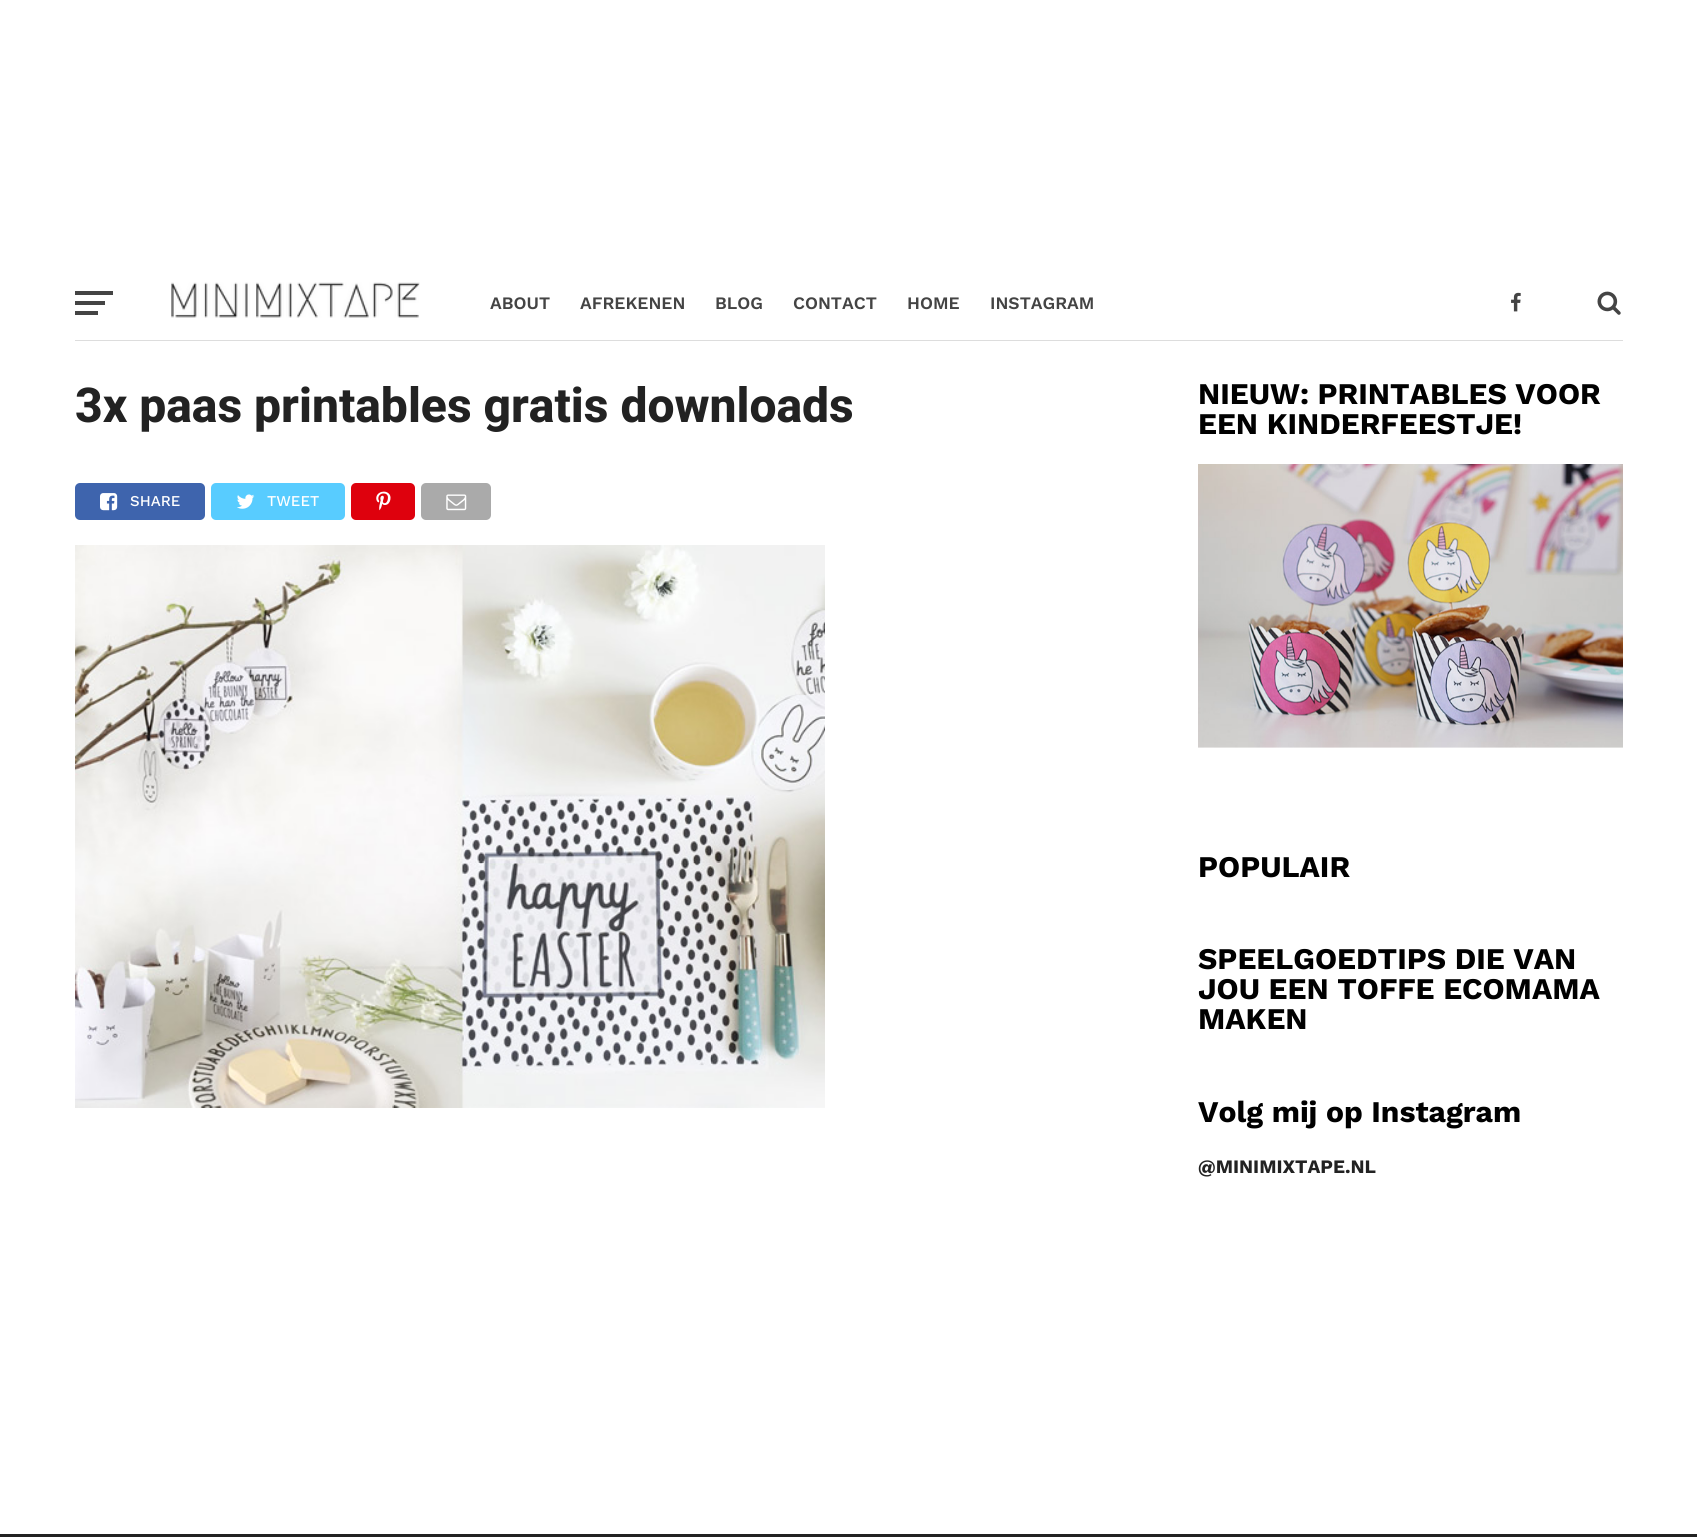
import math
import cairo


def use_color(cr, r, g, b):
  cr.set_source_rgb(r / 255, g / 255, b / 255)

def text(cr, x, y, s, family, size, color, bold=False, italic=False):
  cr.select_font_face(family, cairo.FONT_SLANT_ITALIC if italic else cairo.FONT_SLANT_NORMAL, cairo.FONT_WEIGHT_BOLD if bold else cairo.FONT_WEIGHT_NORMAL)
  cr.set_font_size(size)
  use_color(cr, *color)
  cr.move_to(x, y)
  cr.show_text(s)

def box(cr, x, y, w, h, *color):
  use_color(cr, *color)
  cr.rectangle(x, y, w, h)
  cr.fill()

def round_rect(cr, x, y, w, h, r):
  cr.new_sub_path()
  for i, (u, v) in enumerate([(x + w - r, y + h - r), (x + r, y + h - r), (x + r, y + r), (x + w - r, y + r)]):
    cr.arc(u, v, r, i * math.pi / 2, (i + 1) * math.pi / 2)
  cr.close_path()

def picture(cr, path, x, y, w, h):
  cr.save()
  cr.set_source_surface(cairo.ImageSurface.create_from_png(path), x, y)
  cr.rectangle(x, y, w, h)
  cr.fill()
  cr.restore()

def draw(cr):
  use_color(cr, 255, 255, 255)
  cr.paint()
  box(cr, 75, 291, 38, 4, 68, 68, 68)
  box(cr, 75, 301, 30, 4, 68, 68, 68)
  box(cr, 75, 311, 23, 4, 68, 68, 68)
  picture(cr, "img_01.png", 171, 282, 249, 36)
  picture(cr, "img_02.png", 1511, 292, 10, 20)
  picture(cr, "img_03.png", 1597, 291, 24, 24)
  box(cr, 75, 340, 1548, 1, 221, 221, 221)
  use_color(cr, 62, 100, 173)
  round_rect(cr, 75, 483, 130, 37, 5)
  cr.fill()
  picture(cr, "img_04.png", 100, 493, 18, 18)
  use_color(cr, 88, 204, 255)
  round_rect(cr, 211, 483, 134, 37, 5)
  cr.fill()
  picture(cr, "img_05.png", 237, 494, 18, 15)
  use_color(cr, 222, 1, 13)
  round_rect(cr, 351, 483, 64, 37, 5)
  cr.fill()
  picture(cr, "img_06.png", 376, 491, 15, 20)
  use_color(cr, 170, 170, 170)
  round_rect(cr, 421, 483, 70, 37, 5)
  cr.fill()
  picture(cr, "img_07.png", 446, 494, 21, 17)
  picture(cr, "img_08.png", 75, 545, 750, 563)
  picture(cr, "img_09.png", 1198, 464, 425, 284)
  box(cr, 0, 1534, 1697, 3, 34, 34, 34)
  text(cr, 490, 309, "ABOUT", "Work Sans SemiBold", 17.5, (68, 68, 68))
  text(cr, 580, 309, "AFREKENEN", "Work Sans SemiBold", 17.5, (68, 68, 68))
  text(cr, 715, 309, "BLOG", "Work Sans SemiBold", 17.5, (68, 68, 68))
  text(cr, 793, 309, "CONTACT", "Work Sans SemiBold", 17.5, (68, 68, 68))
  text(cr, 907, 309, "HOME", "Work Sans SemiBold", 17.5, (68, 68, 68))
  text(cr, 990, 309, "INSTAGRAM", "Work Sans SemiBold", 17.5, (68, 68, 68))
  text(cr, 75, 422, "3x paas printables gratis downloads", "Roboto ExtraBold", 48, (34, 34, 34))
  text(cr, 130, 506, "SHARE", "Work Sans Medium", 15, (255, 255, 255))
  text(cr, 267, 506, "TWEET", "Work Sans Medium", 15, (255, 255, 255))
  text(cr, 1198, 404, "NIEUW: PRINTABLES VOOR", "Work Sans", 30, (0, 0, 0), bold=True)
  text(cr, 1198, 434, "EEN KINDERFEESTJE!", "Work Sans", 30, (0, 0, 0), bold=True)
  text(cr, 1198, 877, "POPULAIR", "Work Sans", 30, (0, 0, 0), bold=True)
  text(cr, 1198, 969, "SPEELGOEDTIPS DIE VAN", "Work Sans", 30, (0, 0, 0), bold=True)
  text(cr, 1198, 999, "JOU EEN TOFFE ECOMAMA", "Work Sans", 30, (0, 0, 0), bold=True)
  text(cr, 1198, 1029, "MAKEN", "Work Sans", 30, (0, 0, 0), bold=True)
  text(cr, 1198, 1122, "Volg mij op Instagram", "Work Sans", 30, (0, 0, 0), bold=True)
  text(cr, 1198, 1173, "@MINIMIXTAPE.NL", "Work Sans", 19, (34, 34, 34), bold=True)


surface = cairo.ImageSurface(cairo.FORMAT_RGB24, 1697, 1537)
cr = cairo.Context(surface)
options = cairo.FontOptions()
options.set_hint_metrics(cairo.HINT_METRICS_OFF)
options.set_hint_style(cairo.HINT_STYLE_NONE)
cr.set_font_options(options)
cr.set_miter_limit(4)
draw(cr)
surface.write_to_png("out.png")
